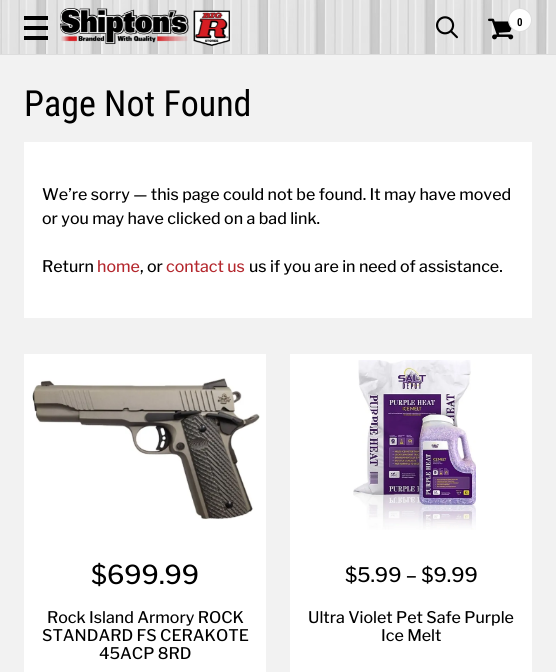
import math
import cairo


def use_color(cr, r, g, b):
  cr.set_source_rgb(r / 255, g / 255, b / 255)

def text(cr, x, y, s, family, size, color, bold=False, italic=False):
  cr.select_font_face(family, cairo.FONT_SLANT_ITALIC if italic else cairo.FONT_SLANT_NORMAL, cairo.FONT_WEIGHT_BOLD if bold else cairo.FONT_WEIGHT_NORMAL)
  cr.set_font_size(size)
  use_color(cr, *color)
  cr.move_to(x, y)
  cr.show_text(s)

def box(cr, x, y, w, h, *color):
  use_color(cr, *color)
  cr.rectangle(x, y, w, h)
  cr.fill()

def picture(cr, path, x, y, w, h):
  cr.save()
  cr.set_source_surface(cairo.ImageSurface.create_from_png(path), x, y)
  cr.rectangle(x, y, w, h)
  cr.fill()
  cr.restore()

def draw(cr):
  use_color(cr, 242, 242, 242)
  cr.paint()
  box(cr, 549, 0, 7, 54, 225, 225, 225)
  picture(cr, "img_01.png", 0, 0, 549, 54)
  box(cr, 0, 54, 556, 1, 221, 221, 221)
  box(cr, 24, 16, 24, 4, 0, 0, 0)
  box(cr, 24, 26, 24, 4, 0, 0, 0)
  box(cr, 24, 36, 24, 4, 0, 0, 0)
  picture(cr, "img_02.png", 60, 8, 170, 38)
  picture(cr, "img_03.png", 436, 16, 22, 23)
  picture(cr, "img_04.png", 488, 18, 26, 22)
  use_color(cr, 255, 255, 255)
  cr.arc(520, 20, 11.5, 0, 2 * math.pi)
  cr.fill_preserve()
  use_color(cr, 221, 221, 221)
  cr.set_line_width(1)
  cr.stroke()
  box(cr, 24, 142, 508, 176, 255, 255, 255)
  box(cr, 24, 354, 242, 318, 255, 255, 255)
  picture(cr, "img_05.png", 32, 378, 228, 142)
  box(cr, 290, 354, 242, 318, 255, 255, 255)
  picture(cr, "img_06.png", 353, 360, 123, 170)
  text(cr, 517, 26, "0", "Roboto Condensed", 11, (0, 0, 0), bold=True)
  text(cr, 24, 116, "Page Not Found", "Roboto Condensed", 36, (0, 0, 0))
  text(cr, 42, 200, "We’re sorry — this page could not be found. It may have moved", "Libre Franklin", 16, (0, 0, 0))
  text(cr, 42, 224, "or you may have clicked on a bad link.", "Libre Franklin", 16, (0, 0, 0))
  text(cr, 42, 272, "Return", "Libre Franklin", 16, (0, 0, 0))
  text(cr, 97, 272, "home", "Libre Franklin", 16, (180, 39, 45))
  text(cr, 140, 272, ", or", "Libre Franklin", 16, (0, 0, 0))
  text(cr, 166, 272, "contact us", "Libre Franklin", 16, (180, 39, 45))
  text(cr, 249, 272, "us if you are in need of assistance.", "Libre Franklin", 16, (0, 0, 0))
  text(cr, 91, 584, "$699.99", "Libre Franklin", 26, (0, 0, 0))
  text(cr, 47, 623, "Rock Island Armory ROCK", "Libre Franklin", 16, (0, 0, 0))
  text(cr, 42, 641, "STANDARD FS CERAKOTE", "Libre Franklin", 16, (0, 0, 0))
  text(cr, 99, 659, "45ACP 8RD", "Libre Franklin", 16, (0, 0, 0))
  text(cr, 345, 582, "$5.99 – $9.99", "Libre Franklin", 20, (0, 0, 0))
  text(cr, 308, 623, "Ultra Violet Pet Safe Purple", "Libre Franklin", 16, (0, 0, 0))
  text(cr, 381, 641, "Ice Melt", "Libre Franklin", 16, (0, 0, 0))


surface = cairo.ImageSurface(cairo.FORMAT_RGB24, 556, 672)
cr = cairo.Context(surface)
options = cairo.FontOptions()
options.set_hint_metrics(cairo.HINT_METRICS_OFF)
options.set_hint_style(cairo.HINT_STYLE_NONE)
cr.set_font_options(options)
cr.set_miter_limit(4)
draw(cr)
surface.write_to_png("out.png")
